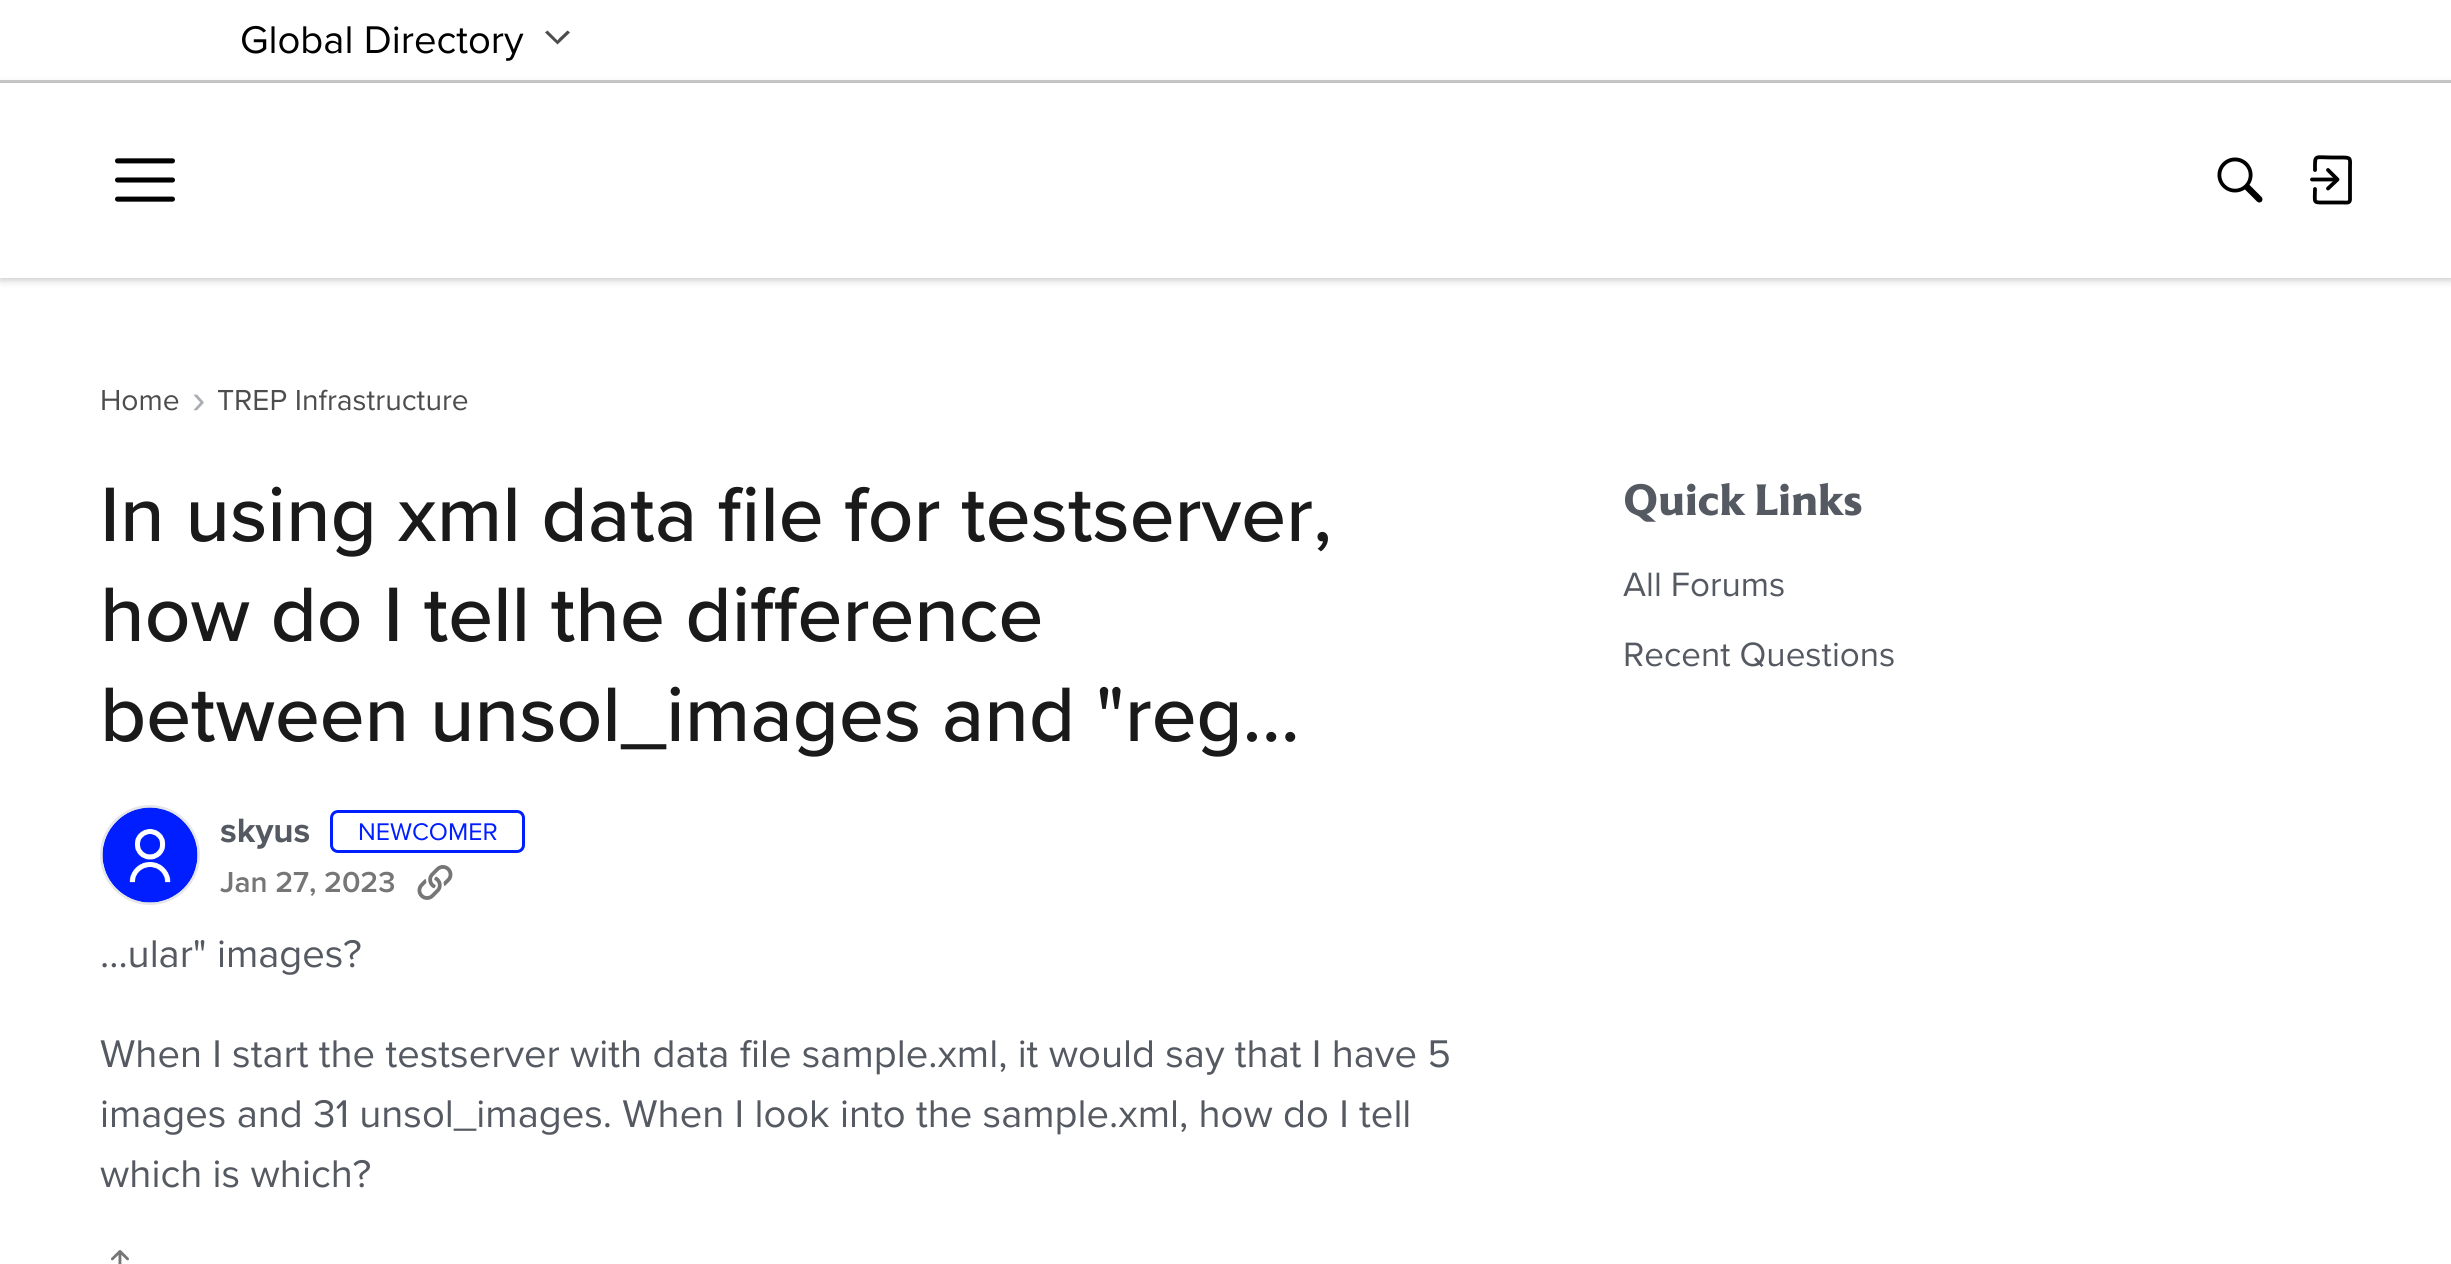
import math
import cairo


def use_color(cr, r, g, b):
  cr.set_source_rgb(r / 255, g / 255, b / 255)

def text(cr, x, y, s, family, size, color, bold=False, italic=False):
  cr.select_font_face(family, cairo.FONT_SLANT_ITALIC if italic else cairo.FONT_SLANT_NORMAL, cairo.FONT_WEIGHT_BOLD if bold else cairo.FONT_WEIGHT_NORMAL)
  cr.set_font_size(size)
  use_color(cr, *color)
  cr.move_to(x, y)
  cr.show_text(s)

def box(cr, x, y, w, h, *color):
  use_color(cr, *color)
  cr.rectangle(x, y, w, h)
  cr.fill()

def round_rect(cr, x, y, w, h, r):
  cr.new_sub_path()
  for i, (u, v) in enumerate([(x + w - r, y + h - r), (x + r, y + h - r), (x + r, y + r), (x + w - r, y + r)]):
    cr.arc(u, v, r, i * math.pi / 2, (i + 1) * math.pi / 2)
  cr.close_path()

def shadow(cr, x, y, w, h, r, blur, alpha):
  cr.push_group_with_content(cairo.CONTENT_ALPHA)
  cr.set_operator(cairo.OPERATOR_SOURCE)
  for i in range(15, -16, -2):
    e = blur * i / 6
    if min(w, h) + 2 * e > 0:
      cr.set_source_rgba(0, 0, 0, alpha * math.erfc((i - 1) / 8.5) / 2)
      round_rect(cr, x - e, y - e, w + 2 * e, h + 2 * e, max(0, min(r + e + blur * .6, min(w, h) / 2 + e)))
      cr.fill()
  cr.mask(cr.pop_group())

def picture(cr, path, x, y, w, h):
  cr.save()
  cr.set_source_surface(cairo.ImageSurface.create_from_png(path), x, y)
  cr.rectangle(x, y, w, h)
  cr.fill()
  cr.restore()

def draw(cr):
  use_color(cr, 255, 255, 255)
  cr.paint()
  box(cr, 0, 80, 2451, 3, 204, 204, 204)
  use_color(cr, 77, 77, 77)
  cr.new_path()
  cr.move_to(559, 38.5)
  cr.line_to(567.5, 30.5)
  cr.line_to(570, 32.5)
  cr.line_to(557.5, 44.5)
  cr.line_to(545, 32.5)
  cr.line_to(547.5, 30.5)
  cr.line_to(557.5, 40.5)
  cr.close_path()
  cr.fill()
  use_color(cr, 0, 0, 0)
  shadow(cr, 0, 85, 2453, 195, 0, 4, 0.22)
  box(cr, 0, 83, 2451, 195, 255, 255, 255)
  picture(cr, "img_01.png", 115, 158, 60, 44)
  picture(cr, "img_02.png", 2217, 157, 46, 46)
  cr.new_path()
  cr.move_to(2328, 188.5)
  cr.line_to(2337.5, 179.5)
  cr.line_to(2328, 170)
  use_color(cr, 0, 0, 0)
  cr.set_line_width(3.8)
  cr.set_line_cap(cairo.LINE_CAP_ROUND)
  cr.set_line_join(cairo.LINE_JOIN_ROUND)
  cr.stroke()
  cr.new_path()
  cr.move_to(2336.5, 179.5)
  cr.line_to(2312, 179.5)
  cr.set_line_join(cairo.LINE_JOIN_MITER)
  cr.stroke()
  cr.new_path()
  cr.move_to(2315, 170)
  cr.curve_to(2315, 154, 2314, 157.5, 2332.5, 157.5)
  cr.line_to(2342, 157.5)
  cr.curve_to(2351.5, 157.5, 2350, 158.5, 2350, 168)
  cr.line_to(2350, 199.5)
  cr.curve_to(2350, 203.5, 2346, 202.5, 2343, 202.5)
  cr.line_to(2328, 202.5)
  cr.curve_to(2312, 202.5, 2315, 204, 2315, 189)
  cr.set_line_join(cairo.LINE_JOIN_ROUND)
  cr.stroke()
  cr.arc(150, 855, 48.5, 0, 2 * math.pi)
  use_color(cr, 230, 230, 232)
  cr.set_line_width(3)
  cr.set_line_cap(cairo.LINE_CAP_BUTT)
  cr.set_line_join(cairo.LINE_JOIN_MITER)
  cr.stroke()
  picture(cr, "img_03.png", 102, 807, 96, 96)
  round_rect(cr, 331.5, 811.5, 192, 40, 6.5)
  use_color(cr, 0, 30, 255)
  cr.stroke()
  picture(cr, "img_04.png", 417, 865, 36, 35)
  picture(cr, "img_05.png", 111, 1250, 18, 14)
  text(cr, 240, 53, "Global Directory", "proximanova", 40, (0, 0, 0))
  text(cr, 100, 410, "Home", "proximanova", 30, (77, 77, 77))
  text(cr, 192, 413, "›", "Liberation Sans", 40, (170, 173, 177))
  cr.save()
  cr.rectangle(218, 380, 250, 40)
  cr.clip()
  text(cr, 217, 410, "TREP Infrastructure", "proximanova", 30, (77, 77, 77))
  cr.restore()
  text(cr, 100, 541, "In using xml data file for testserver,", "Proxima Nova Medium", 80, (26, 26, 26))
  text(cr, 100, 641, "how do I tell the difference", "Proxima Nova Medium", 80, (26, 26, 26))
  text(cr, 100, 741, "between unsol_images and \"reg...", "Proxima Nova Medium", 80, (26, 26, 26))
  text(cr, 220, 842, "skyus", "proximanova", 35, (85, 90, 98), bold=True)
  text(cr, 358, 840, "NEWCOMER", "proximanova", 25, (0, 30, 255))
  text(cr, 220, 892, "Jan 27, 2023", "Proxima Nova SemiBold", 30, (118, 118, 118))
  text(cr, 100, 967, "...ular\" images?", "proximanova", 40, (85, 90, 98))
  text(cr, 100, 1067, "When I start the testserver with data file sample.xml, it would say that I have 5", "proximanova", 40, (85, 90, 98))
  text(cr, 100, 1127, "images and 31 unsol_images. When I look into the sample.xml, how do I tell", "proximanova", 40, (85, 90, 98))
  text(cr, 100, 1187, "which is which?", "proximanova", 40, (85, 90, 98))
  text(cr, 1623, 515, "Quick Links", "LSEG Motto", 45, (85, 90, 98), bold=True)
  text(cr, 1623, 596, "All Forums", "proximanova", 35, (85, 90, 98))
  text(cr, 1623, 666, "Recent Questions", "proximanova", 35, (85, 90, 98))


surface = cairo.ImageSurface(cairo.FORMAT_RGB24, 2451, 1264)
cr = cairo.Context(surface)
options = cairo.FontOptions()
options.set_hint_metrics(cairo.HINT_METRICS_OFF)
options.set_hint_style(cairo.HINT_STYLE_NONE)
cr.set_font_options(options)
cr.set_miter_limit(4)
draw(cr)
surface.write_to_png("out.png")
